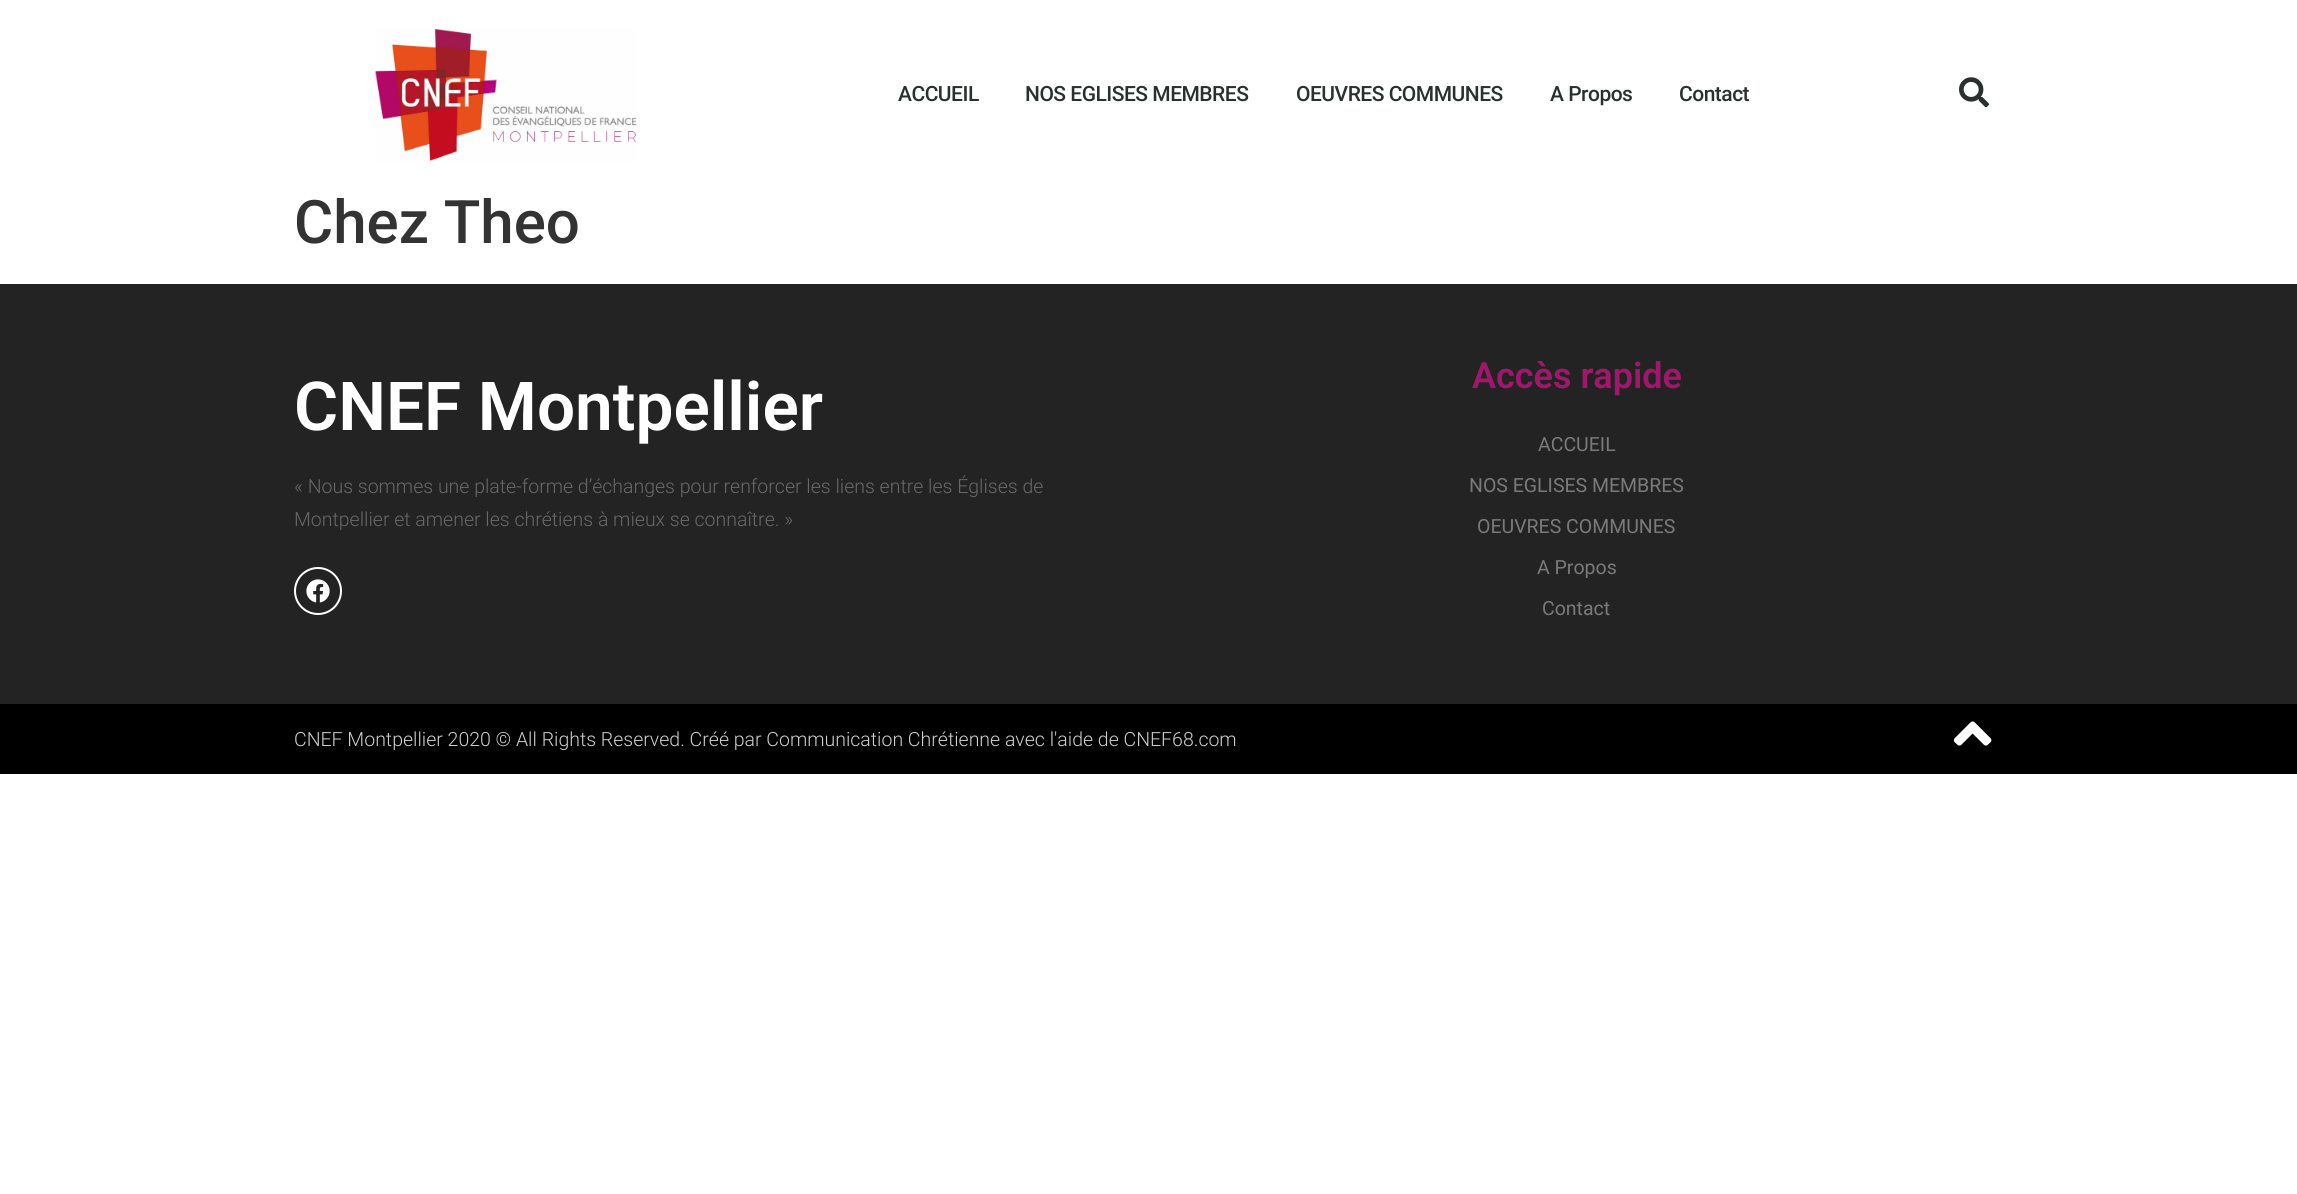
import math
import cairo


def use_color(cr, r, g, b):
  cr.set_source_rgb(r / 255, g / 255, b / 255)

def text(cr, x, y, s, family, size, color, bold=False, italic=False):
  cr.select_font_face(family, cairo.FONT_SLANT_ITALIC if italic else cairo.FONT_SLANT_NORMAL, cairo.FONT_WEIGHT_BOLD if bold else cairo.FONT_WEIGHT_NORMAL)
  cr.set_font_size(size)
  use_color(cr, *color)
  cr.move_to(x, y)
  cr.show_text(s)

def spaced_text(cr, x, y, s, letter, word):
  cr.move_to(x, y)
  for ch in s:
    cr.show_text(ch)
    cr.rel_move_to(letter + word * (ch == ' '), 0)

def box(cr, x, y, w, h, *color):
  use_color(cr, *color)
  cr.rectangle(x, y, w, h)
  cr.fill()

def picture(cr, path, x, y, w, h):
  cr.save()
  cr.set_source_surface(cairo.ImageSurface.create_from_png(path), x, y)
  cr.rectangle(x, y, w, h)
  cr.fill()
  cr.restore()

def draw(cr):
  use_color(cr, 255, 255, 255)
  cr.paint()
  picture(cr, "img_01.png", 375, 27, 262, 135)
  picture(cr, "img_02.png", 1959, 77, 30, 31)
  box(cr, 0, 284, 2297, 420, 35, 35, 35)
  cr.arc(318, 591, 23, 0, 2 * math.pi)
  use_color(cr, 255, 255, 255)
  cr.stroke()
  picture(cr, "img_03.png", 306, 579, 24, 24)
  box(cr, 0, 704, 2297, 70, 0, 0, 0)
  picture(cr, "img_04.png", 1953, 721, 39, 25)
  cr.select_font_face("Roboto Medium")
  cr.set_font_size(21)
  use_color(cr, 42, 48, 47)
  spaced_text(cr, 898, 101, "ACCUEIL", -0.5, 0)
  spaced_text(cr, 1025, 101, "NOS EGLISES MEMBRES", -0.5, 0)
  spaced_text(cr, 1296, 101, "OEUVRES COMMUNES", -0.5, 0)
  spaced_text(cr, 1550, 101, "A Propos", -0.5, 0)
  spaced_text(cr, 1679, 101, "Contact", -0.5, 0)
  text(cr, 294, 243, "Chez Theo", "Roboto Medium", 60, (51, 51, 51))
  text(cr, 294, 430, "CNEF Montpellier", "Roboto SemiBold", 67.5, (255, 255, 255))
  text(cr, 294, 493, "« Nous sommes une plate-forme d’échanges pour renforcer les liens entre les Églises de", "Roboto Light", 19.5, (104, 104, 104))
  text(cr, 294, 526, "Montpellier et amener les chrétiens à mieux se connaître. »", "Roboto Light", 19.5, (104, 104, 104))
  text(cr, 1472, 388, "Accès rapide", "Roboto SemiBold", 36, (161, 23, 107))
  text(cr, 1538, 451, "ACCUEIL", "Roboto", 19.5, (122, 122, 122))
  text(cr, 1469, 492, "NOS EGLISES MEMBRES", "Roboto", 19.5, (122, 122, 122))
  text(cr, 1477, 533, "OEUVRES COMMUNES", "Roboto", 19.5, (122, 122, 122))
  text(cr, 1537, 574, "A Propos", "Roboto", 19.5, (122, 122, 122))
  text(cr, 1542, 615, "Contact", "Roboto", 19.5, (122, 122, 122))
  text(cr, 294, 746, "CNEF Montpellier 2020 © All Rights Reserved. Créé par Communication Chrétienne avec l'aide de CNEF68.com", "Roboto Light", 19.5, (207, 207, 207))


surface = cairo.ImageSurface(cairo.FORMAT_RGB24, 2297, 1194)
cr = cairo.Context(surface)
options = cairo.FontOptions()
options.set_hint_metrics(cairo.HINT_METRICS_OFF)
options.set_hint_style(cairo.HINT_STYLE_NONE)
cr.set_font_options(options)
cr.set_miter_limit(4)
draw(cr)
surface.write_to_png("out.png")
